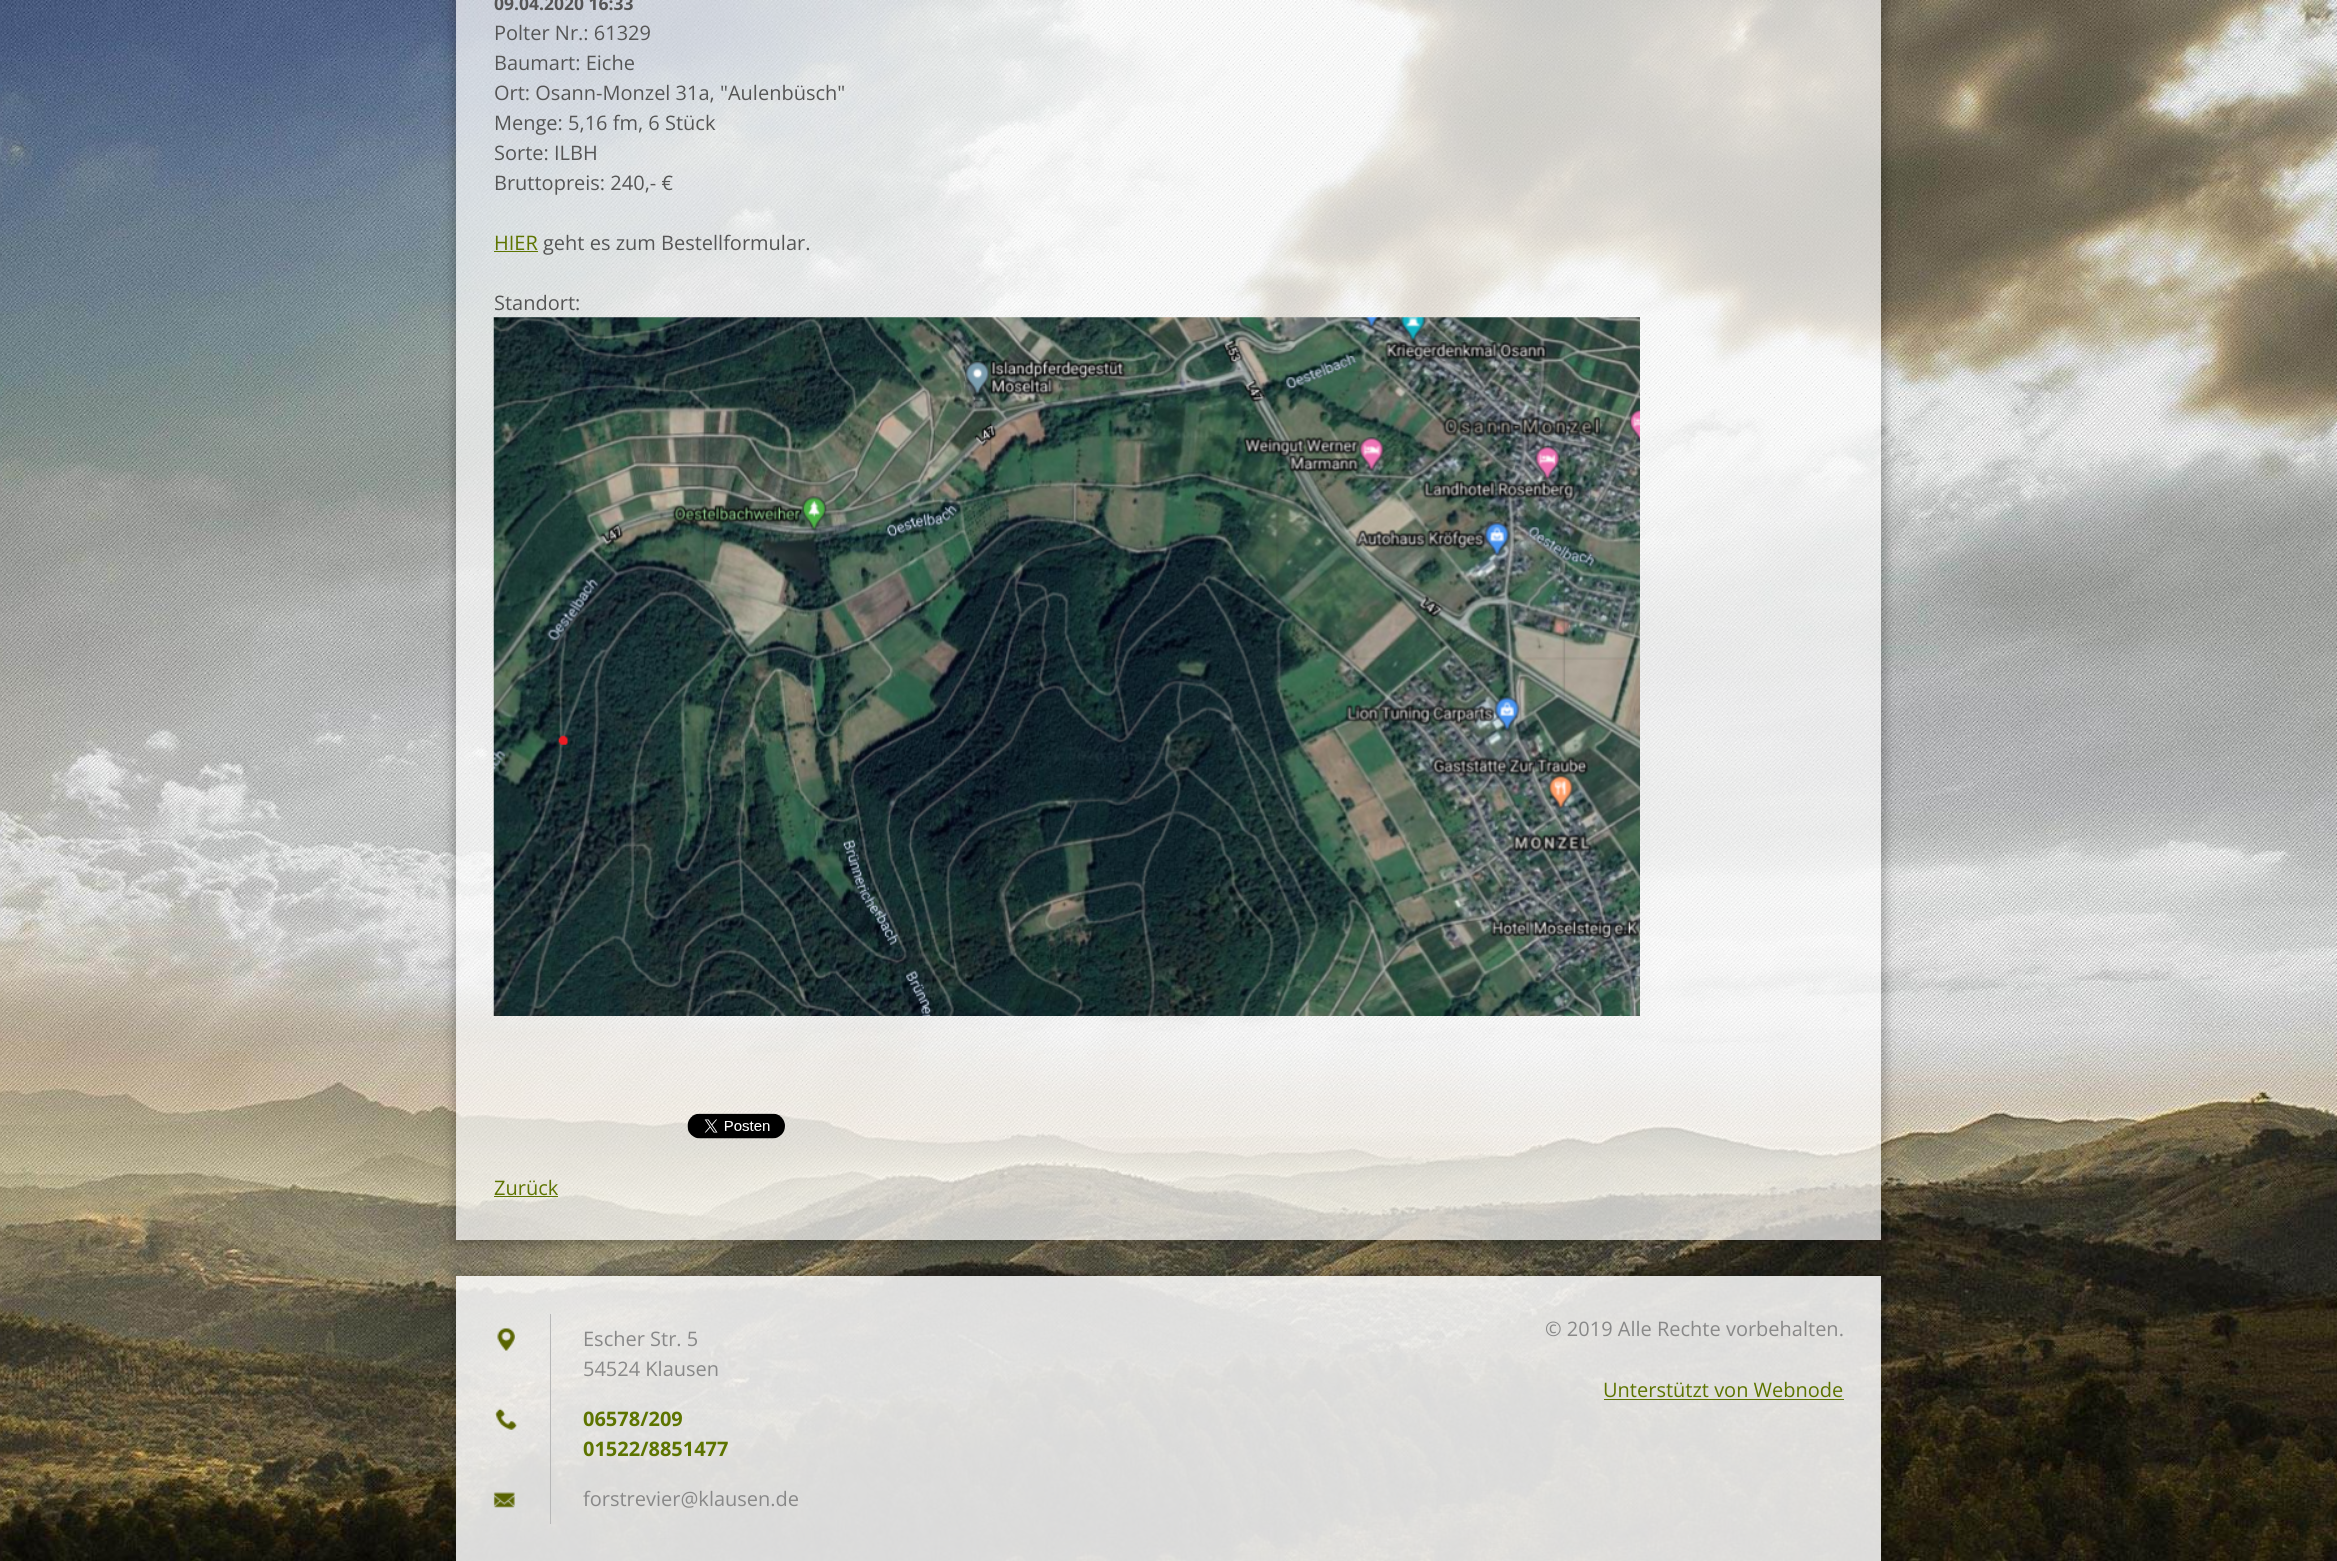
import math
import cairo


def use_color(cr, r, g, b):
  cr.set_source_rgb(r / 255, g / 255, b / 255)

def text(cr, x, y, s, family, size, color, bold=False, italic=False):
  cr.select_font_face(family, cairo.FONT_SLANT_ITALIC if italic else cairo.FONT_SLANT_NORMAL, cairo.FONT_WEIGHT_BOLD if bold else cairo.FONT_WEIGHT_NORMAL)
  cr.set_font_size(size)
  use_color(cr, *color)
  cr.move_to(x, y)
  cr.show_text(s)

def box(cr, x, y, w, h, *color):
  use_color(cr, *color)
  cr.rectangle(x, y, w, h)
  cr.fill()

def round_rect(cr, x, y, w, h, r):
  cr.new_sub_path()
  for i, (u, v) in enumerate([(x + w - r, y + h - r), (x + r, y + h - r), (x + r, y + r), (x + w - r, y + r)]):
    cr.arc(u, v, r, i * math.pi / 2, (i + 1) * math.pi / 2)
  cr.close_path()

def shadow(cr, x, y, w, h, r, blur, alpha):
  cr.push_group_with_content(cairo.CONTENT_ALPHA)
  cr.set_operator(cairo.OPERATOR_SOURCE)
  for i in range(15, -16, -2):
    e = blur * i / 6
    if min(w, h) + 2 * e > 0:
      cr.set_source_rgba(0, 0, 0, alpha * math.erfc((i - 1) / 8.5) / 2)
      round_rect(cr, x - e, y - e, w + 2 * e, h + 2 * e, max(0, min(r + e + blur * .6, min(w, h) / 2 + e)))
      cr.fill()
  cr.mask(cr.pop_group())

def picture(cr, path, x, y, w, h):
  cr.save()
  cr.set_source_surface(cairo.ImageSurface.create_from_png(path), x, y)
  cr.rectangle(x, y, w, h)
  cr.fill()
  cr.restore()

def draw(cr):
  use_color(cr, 255, 255, 255)
  cr.paint()
  picture(cr, "img_01.png", 0, 0, 2337, 1561)
  cr.save()
  cr.set_fill_rule(cairo.FILL_RULE_EVEN_ODD)
  cr.new_path()
  cr.move_to(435, 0)
  cr.line_to(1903, 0)
  cr.line_to(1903, 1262)
  cr.line_to(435, 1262)
  cr.close_path()
  cr.move_to(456, -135)
  cr.line_to(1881, -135)
  cr.line_to(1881, 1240)
  cr.line_to(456, 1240)
  cr.close_path()
  cr.clip()
  use_color(cr, 0, 0, 0)
  shadow(cr, 453, -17, 1432, 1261, 0, 5.5, 0.25)
  cr.restore()
  cr.set_source_rgba(1, 1, 1, 0.7)
  cr.rectangle(456, 0, 1425, 1114)
  cr.fill()
  box(cr, 494, 251, 44, 1, 93, 116, 0)
  picture(cr, "img_02.png", 493, 317, 1147, 699)
  cr.set_source_rgba(1, 1, 1, 0.7)
  cr.rectangle(456, 1114, 1425, 126)
  cr.fill()
  picture(cr, "img_03.png", 687, 1113, 98, 26)
  box(cr, 494, 1196, 64, 1, 93, 116, 0)
  cr.save()
  cr.set_fill_rule(cairo.FILL_RULE_EVEN_ODD)
  cr.new_path()
  cr.move_to(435, 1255)
  cr.line_to(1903, 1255)
  cr.line_to(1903, 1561)
  cr.line_to(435, 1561)
  cr.close_path()
  cr.move_to(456, 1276)
  cr.line_to(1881, 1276)
  cr.line_to(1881, 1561)
  cr.line_to(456, 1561)
  cr.close_path()
  cr.clip()
  use_color(cr, 0, 0, 0)
  shadow(cr, 453, 1273, 1432, 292, 0, 5.5, 0.25)
  cr.restore()
  cr.set_source_rgba(1, 1, 1, 0.85)
  cr.rectangle(456, 1276, 1425, 285)
  cr.fill()
  picture(cr, "img_04.png", 497, 1328, 18, 23)
  box(cr, 550, 1314, 1, 210, 183, 183, 183)
  picture(cr, "img_05.png", 495, 1408, 22, 22)
  picture(cr, "img_06.png", 493, 1492, 22, 16)
  box(cr, 1604, 1399, 240, 1, 93, 116, 0)
  text(cr, 494, 10, "09.04.2020 16:33", "Open Sans", 17.5, (85, 85, 85), bold=True)
  text(cr, 494, 40, "Polter Nr.: 61329", "Open Sans", 20, (85, 85, 85))
  text(cr, 494, 70, "Baumart: Eiche", "Open Sans", 20, (85, 85, 85))
  text(cr, 494, 100, "Ort: Osann-Monzel 31a, \"Aulenbüsch\"", "Open Sans", 20, (85, 85, 85))
  text(cr, 494, 130, "Menge: 5,16 fm, 6 Stück", "Open Sans", 20, (85, 85, 85))
  text(cr, 494, 160, "Sorte: ILBH", "Open Sans", 20, (85, 85, 85))
  text(cr, 494, 190, "Bruttopreis: 240,- €", "Open Sans", 20, (85, 85, 85))
  text(cr, 494, 250, "HIER", "Open Sans", 20, (93, 116, 0))
  text(cr, 543, 250, "geht es zum Bestellformular.", "Open Sans", 20, (85, 85, 85))
  text(cr, 494, 310, "Standort:", "Open Sans", 20, (85, 85, 85))
  text(cr, 494, 1195, "Zurück", "Open Sans", 20, (93, 116, 0))
  text(cr, 583, 1346, "Escher Str. 5", "Open Sans", 20, (136, 136, 136))
  text(cr, 583, 1376, "54524 Klausen", "Open Sans", 20, (136, 136, 136))
  text(cr, 583, 1426, "06578/209", "Open Sans", 20, (93, 116, 0), bold=True)
  text(cr, 583, 1456, "01522/8851477", "Open Sans", 20, (93, 116, 0), bold=True)
  text(cr, 583, 1506, "forstrevier@klausen.de", "Open Sans", 20, (136, 136, 136))
  text(cr, 1545, 1336, "© 2019 Alle Rechte vorbehalten.", "Open Sans", 20, (136, 136, 136))
  text(cr, 1603, 1397, "Unterstützt von Webnode", "Open Sans", 20, (93, 116, 0))


surface = cairo.ImageSurface(cairo.FORMAT_RGB24, 2337, 1561)
cr = cairo.Context(surface)
options = cairo.FontOptions()
options.set_hint_metrics(cairo.HINT_METRICS_OFF)
options.set_hint_style(cairo.HINT_STYLE_NONE)
cr.set_font_options(options)
cr.set_miter_limit(4)
draw(cr)
surface.write_to_png("out.png")
